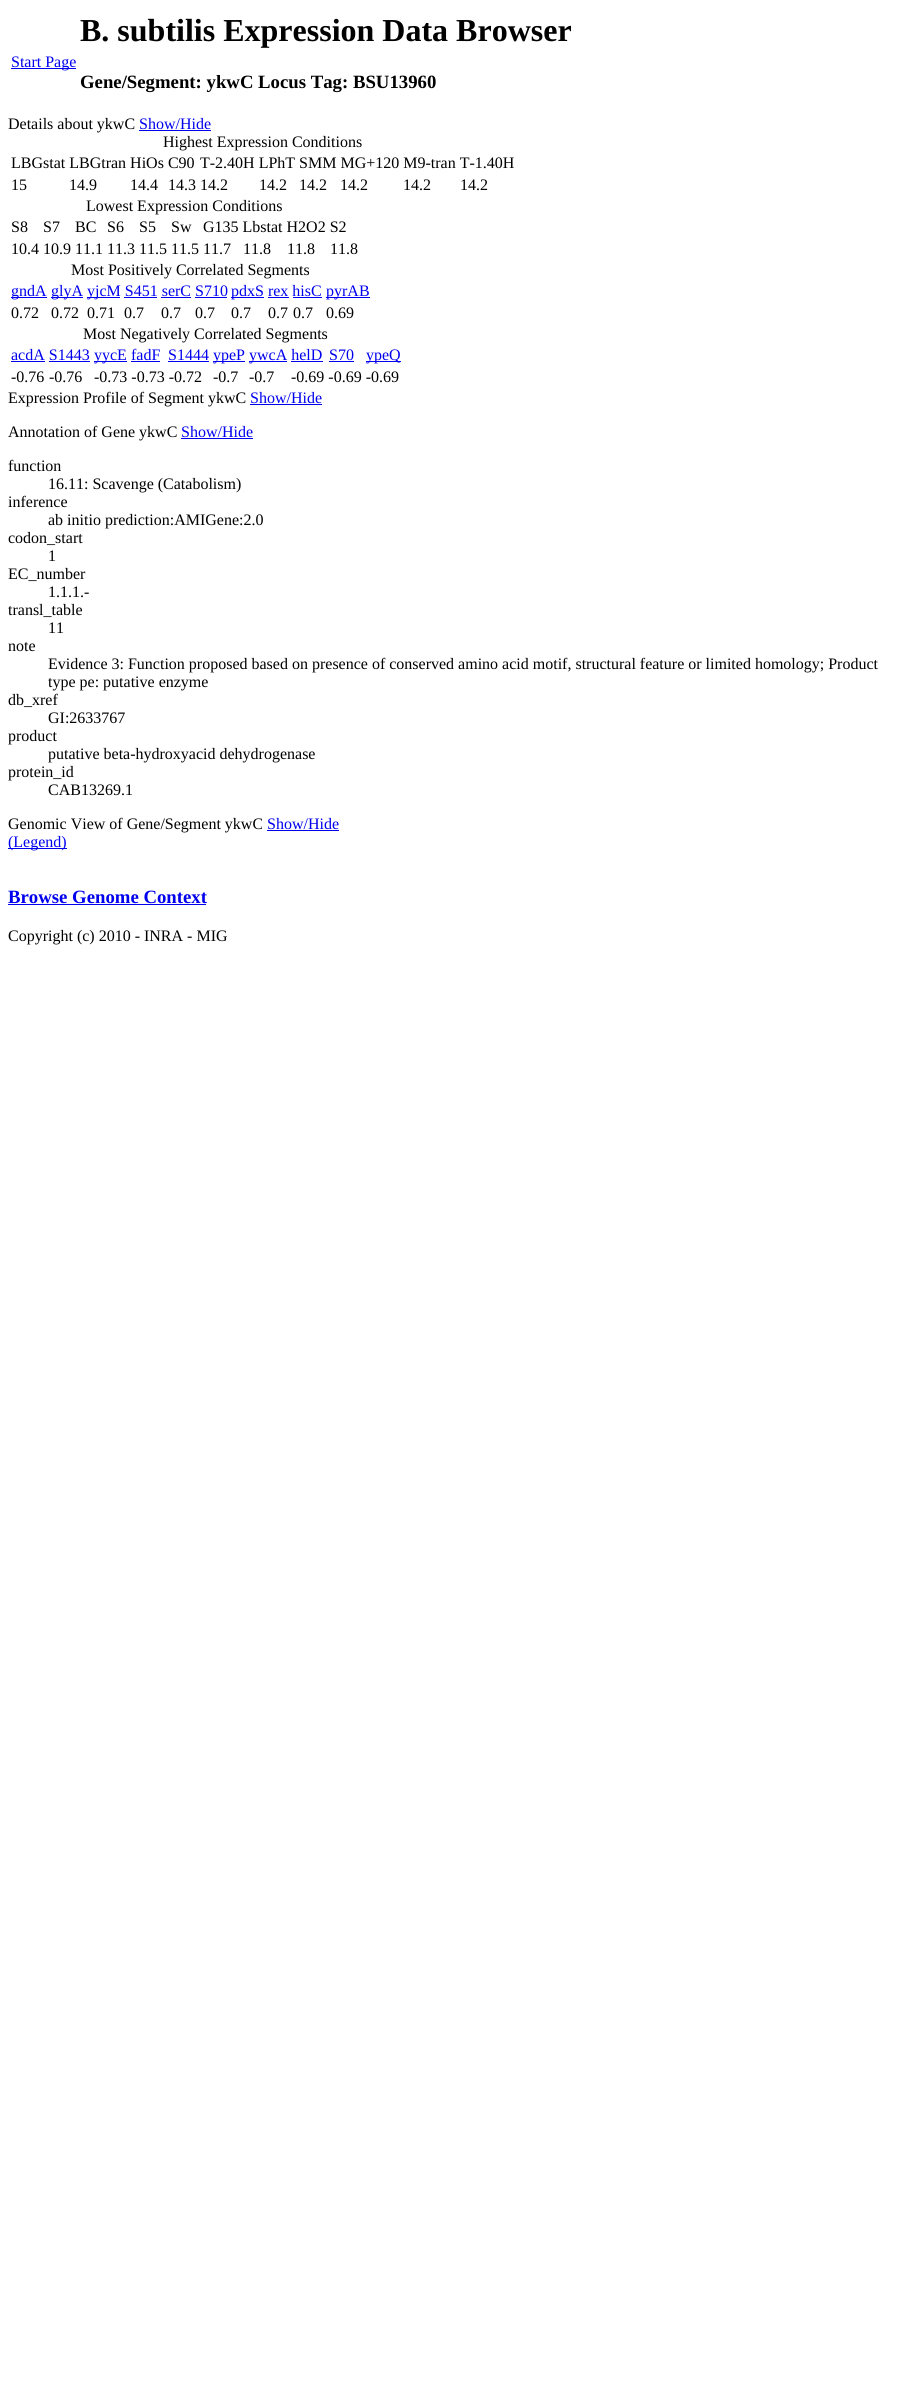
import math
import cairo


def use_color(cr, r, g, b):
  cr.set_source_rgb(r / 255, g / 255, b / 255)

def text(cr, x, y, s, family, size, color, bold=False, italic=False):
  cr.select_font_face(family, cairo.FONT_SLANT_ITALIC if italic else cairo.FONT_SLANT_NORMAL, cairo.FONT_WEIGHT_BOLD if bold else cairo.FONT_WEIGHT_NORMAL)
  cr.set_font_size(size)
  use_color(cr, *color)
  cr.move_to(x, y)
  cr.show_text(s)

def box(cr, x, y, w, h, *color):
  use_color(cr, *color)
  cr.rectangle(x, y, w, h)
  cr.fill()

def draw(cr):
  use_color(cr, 255, 255, 255)
  cr.paint()
  box(cr, 11, 68, 65, 1, 0, 0, 238)
  box(cr, 139, 130, 72, 1, 0, 0, 238)
  box(cr, 11, 297, 36, 1, 0, 0, 238)
  box(cr, 51, 297, 32, 1, 0, 0, 238)
  box(cr, 87, 297, 33, 1, 0, 0, 238)
  box(cr, 231, 297, 33, 1, 0, 0, 238)
  box(cr, 326, 297, 44, 1, 0, 0, 238)
  box(cr, 124, 297, 33, 1, 0, 0, 238)
  box(cr, 161, 297, 30, 1, 0, 0, 238)
  box(cr, 195, 297, 32, 1, 0, 0, 238)
  box(cr, 268, 297, 21, 1, 0, 0, 238)
  box(cr, 293, 297, 29, 1, 0, 0, 238)
  box(cr, 11, 361, 34, 1, 0, 0, 238)
  box(cr, 94, 361, 33, 1, 0, 0, 238)
  box(cr, 131, 361, 29, 1, 0, 0, 238)
  box(cr, 168, 361, 41, 1, 0, 0, 238)
  box(cr, 213, 361, 32, 1, 0, 0, 238)
  box(cr, 249, 361, 38, 1, 0, 0, 238)
  box(cr, 329, 361, 25, 1, 0, 0, 238)
  box(cr, 366, 361, 35, 1, 0, 0, 238)
  box(cr, 49, 361, 41, 1, 0, 0, 238)
  box(cr, 291, 361, 32, 1, 0, 0, 238)
  box(cr, 250, 404, 72, 1, 0, 0, 238)
  box(cr, 181, 438, 72, 1, 0, 0, 238)
  box(cr, 267, 830, 72, 1, 0, 0, 238)
  box(cr, 8, 848, 59, 1, 0, 0, 238)
  box(cr, 8, 904, 198, 1, 0, 0, 238)
  text(cr, 11, 67, "Start Page", "Liberation Serif", 16, (0, 0, 238))
  text(cr, 80, 41, "B. subtilis Expression Data Browser", "Liberation Serif", 32, (0, 0, 0), bold=True)
  text(cr, 80, 88, "Gene/Segment: ykwC Locus Tag: BSU13960", "Liberation Serif", 18.75, (0, 0, 0), bold=True)
  text(cr, 8, 129, "Details about ykwC", "Liberation Serif", 16, (0, 0, 0))
  text(cr, 139, 129, "Show/Hide", "Liberation Serif", 16, (0, 0, 238))
  text(cr, 163, 147, "Highest Expression Conditions", "Liberation Serif", 16, (0, 0, 0))
  text(cr, 11, 168, "LBGstat LBGtran HiOs C90", "Liberation Serif", 16, (0, 0, 0))
  text(cr, 200, 168, "T-2.40H LPhT SMM MG+120 M9-tran T-1.40H", "Liberation Serif", 16, (0, 0, 0))
  text(cr, 11, 190, "15", "Liberation Serif", 16, (0, 0, 0))
  text(cr, 69, 190, "14.9", "Liberation Serif", 16, (0, 0, 0))
  text(cr, 130, 190, "14.4", "Liberation Serif", 16, (0, 0, 0))
  text(cr, 168, 190, "14.3 14.2", "Liberation Serif", 16, (0, 0, 0))
  text(cr, 259, 190, "14.2", "Liberation Serif", 16, (0, 0, 0))
  text(cr, 299, 190, "14.2", "Liberation Serif", 16, (0, 0, 0))
  text(cr, 340, 190, "14.2", "Liberation Serif", 16, (0, 0, 0))
  text(cr, 403, 190, "14.2", "Liberation Serif", 16, (0, 0, 0))
  text(cr, 460, 190, "14.2", "Liberation Serif", 16, (0, 0, 0))
  text(cr, 86, 211, "Lowest Expression Conditions", "Liberation Serif", 16, (0, 0, 0))
  text(cr, 11, 232, "S8", "Liberation Serif", 16, (0, 0, 0))
  text(cr, 43, 232, "S7", "Liberation Serif", 16, (0, 0, 0))
  text(cr, 75, 232, "BC", "Liberation Serif", 16, (0, 0, 0))
  text(cr, 107, 232, "S6", "Liberation Serif", 16, (0, 0, 0))
  text(cr, 139, 232, "S5", "Liberation Serif", 16, (0, 0, 0))
  text(cr, 171, 232, "Sw", "Liberation Serif", 16, (0, 0, 0))
  text(cr, 203, 232, "G135 Lbstat H2O2 S2", "Liberation Serif", 16, (0, 0, 0))
  text(cr, 11, 254, "10.4 10.9 11.1 11.3 11.5 11.5 11.7", "Liberation Serif", 16, (0, 0, 0))
  text(cr, 243, 254, "11.8", "Liberation Serif", 16, (0, 0, 0))
  text(cr, 287, 254, "11.8", "Liberation Serif", 16, (0, 0, 0))
  text(cr, 330, 254, "11.8", "Liberation Serif", 16, (0, 0, 0))
  text(cr, 71, 275, "Most Positively Correlated Segments", "Liberation Serif", 16, (0, 0, 0))
  text(cr, 11, 296, "gndA", "Liberation Serif", 16, (0, 0, 238))
  text(cr, 51, 296, "glyA", "Liberation Serif", 16, (0, 0, 238))
  text(cr, 87, 296, "yjcM S451 serC S710", "Liberation Serif", 16, (0, 0, 238))
  text(cr, 231, 296, "pdxS rex hisC", "Liberation Serif", 16, (0, 0, 238))
  text(cr, 326, 296, "pyrAB", "Liberation Serif", 16, (0, 0, 238))
  text(cr, 11, 318, "0.72", "Liberation Serif", 16, (0, 0, 0))
  text(cr, 51, 318, "0.72", "Liberation Serif", 16, (0, 0, 0))
  text(cr, 87, 318, "0.71", "Liberation Serif", 16, (0, 0, 0))
  text(cr, 124, 318, "0.7", "Liberation Serif", 16, (0, 0, 0))
  text(cr, 161, 318, "0.7", "Liberation Serif", 16, (0, 0, 0))
  text(cr, 195, 318, "0.7", "Liberation Serif", 16, (0, 0, 0))
  text(cr, 231, 318, "0.7", "Liberation Serif", 16, (0, 0, 0))
  text(cr, 268, 318, "0.7", "Liberation Serif", 16, (0, 0, 0))
  text(cr, 293, 318, "0.7", "Liberation Serif", 16, (0, 0, 0))
  text(cr, 326, 318, "0.69", "Liberation Serif", 16, (0, 0, 0))
  text(cr, 83, 339, "Most Negatively Correlated Segments", "Liberation Serif", 16, (0, 0, 0))
  text(cr, 11, 360, "acdA S1443", "Liberation Serif", 16, (0, 0, 238))
  text(cr, 94, 360, "yycE", "Liberation Serif", 16, (0, 0, 238))
  text(cr, 131, 360, "fadF", "Liberation Serif", 16, (0, 0, 238))
  text(cr, 168, 360, "S1444", "Liberation Serif", 16, (0, 0, 238))
  text(cr, 213, 360, "ypeP", "Liberation Serif", 16, (0, 0, 238))
  text(cr, 249, 360, "ywcA helD", "Liberation Serif", 16, (0, 0, 238))
  text(cr, 329, 360, "S70", "Liberation Serif", 16, (0, 0, 238))
  text(cr, 366, 360, "ypeQ", "Liberation Serif", 16, (0, 0, 238))
  text(cr, 11, 382, "-0.76", "Liberation Serif", 16, (0, 0, 0))
  text(cr, 49, 382, "-0.76", "Liberation Serif", 16, (0, 0, 0))
  text(cr, 94, 382, "-0.73 -0.73 -0.72", "Liberation Serif", 16, (0, 0, 0))
  text(cr, 213, 382, "-0.7", "Liberation Serif", 16, (0, 0, 0))
  text(cr, 249, 382, "-0.7", "Liberation Serif", 16, (0, 0, 0))
  text(cr, 291, 382, "-0.69 -0.69 -0.69", "Liberation Serif", 16, (0, 0, 0))
  text(cr, 8, 403, "Expression Profile of Segment ykwC", "Liberation Serif", 16, (0, 0, 0))
  text(cr, 250, 403, "Show/Hide", "Liberation Serif", 16, (0, 0, 238))
  text(cr, 8, 437, "Annotation of Gene ykwC", "Liberation Serif", 16, (0, 0, 0))
  text(cr, 181, 437, "Show/Hide", "Liberation Serif", 16, (0, 0, 238))
  text(cr, 8, 471, "function", "Liberation Serif", 16, (0, 0, 0))
  text(cr, 48, 489, "16.11: Scavenge (Catabolism)", "Liberation Serif", 16, (0, 0, 0))
  text(cr, 8, 507, "inference", "Liberation Serif", 16, (0, 0, 0))
  text(cr, 48, 525, "ab initio prediction:AMIGene:2.0", "Liberation Serif", 16, (0, 0, 0))
  text(cr, 8, 543, "codon_start", "Liberation Serif", 16, (0, 0, 0))
  text(cr, 48, 561, "1", "Liberation Serif", 16, (0, 0, 0))
  text(cr, 8, 579, "EC_number", "Liberation Serif", 16, (0, 0, 0))
  text(cr, 48, 597, "1.1.1.-", "Liberation Serif", 16, (0, 0, 0))
  text(cr, 8, 615, "transl_table", "Liberation Serif", 16, (0, 0, 0))
  text(cr, 48, 633, "11", "Liberation Serif", 16, (0, 0, 0))
  text(cr, 8, 651, "note", "Liberation Serif", 16, (0, 0, 0))
  text(cr, 48, 669, "Evidence 3: Function proposed based on presence of conserved amino acid motif, structural feature or limited homology; Product", "Liberation Serif", 16, (0, 0, 0))
  text(cr, 48, 687, "type pe: putative enzyme", "Liberation Serif", 16, (0, 0, 0))
  text(cr, 8, 705, "db_xref", "Liberation Serif", 16, (0, 0, 0))
  text(cr, 48, 723, "GI:2633767", "Liberation Serif", 16, (0, 0, 0))
  text(cr, 8, 741, "product", "Liberation Serif", 16, (0, 0, 0))
  text(cr, 48, 759, "putative beta-hydroxyacid dehydrogenase", "Liberation Serif", 16, (0, 0, 0))
  text(cr, 8, 777, "protein_id", "Liberation Serif", 16, (0, 0, 0))
  text(cr, 48, 795, "CAB13269.1", "Liberation Serif", 16, (0, 0, 0))
  text(cr, 8, 829, "Genomic View of Gene/Segment ykwC", "Liberation Serif", 16, (0, 0, 0))
  text(cr, 267, 829, "Show/Hide", "Liberation Serif", 16, (0, 0, 238))
  text(cr, 8, 847, "(Legend)", "Liberation Serif", 16, (0, 0, 238))
  text(cr, 8, 903, "Browse Genome Context", "Liberation Serif", 18.75, (0, 0, 238), bold=True)
  text(cr, 8, 941, "Copyright (c) 2010 - INRA - MIG", "Liberation Serif", 16, (0, 0, 0))


surface = cairo.ImageSurface(cairo.FORMAT_RGB24, 912, 2401)
cr = cairo.Context(surface)
options = cairo.FontOptions()
options.set_hint_metrics(cairo.HINT_METRICS_OFF)
options.set_hint_style(cairo.HINT_STYLE_NONE)
cr.set_font_options(options)
cr.set_miter_limit(4)
draw(cr)
surface.write_to_png("out.png")
